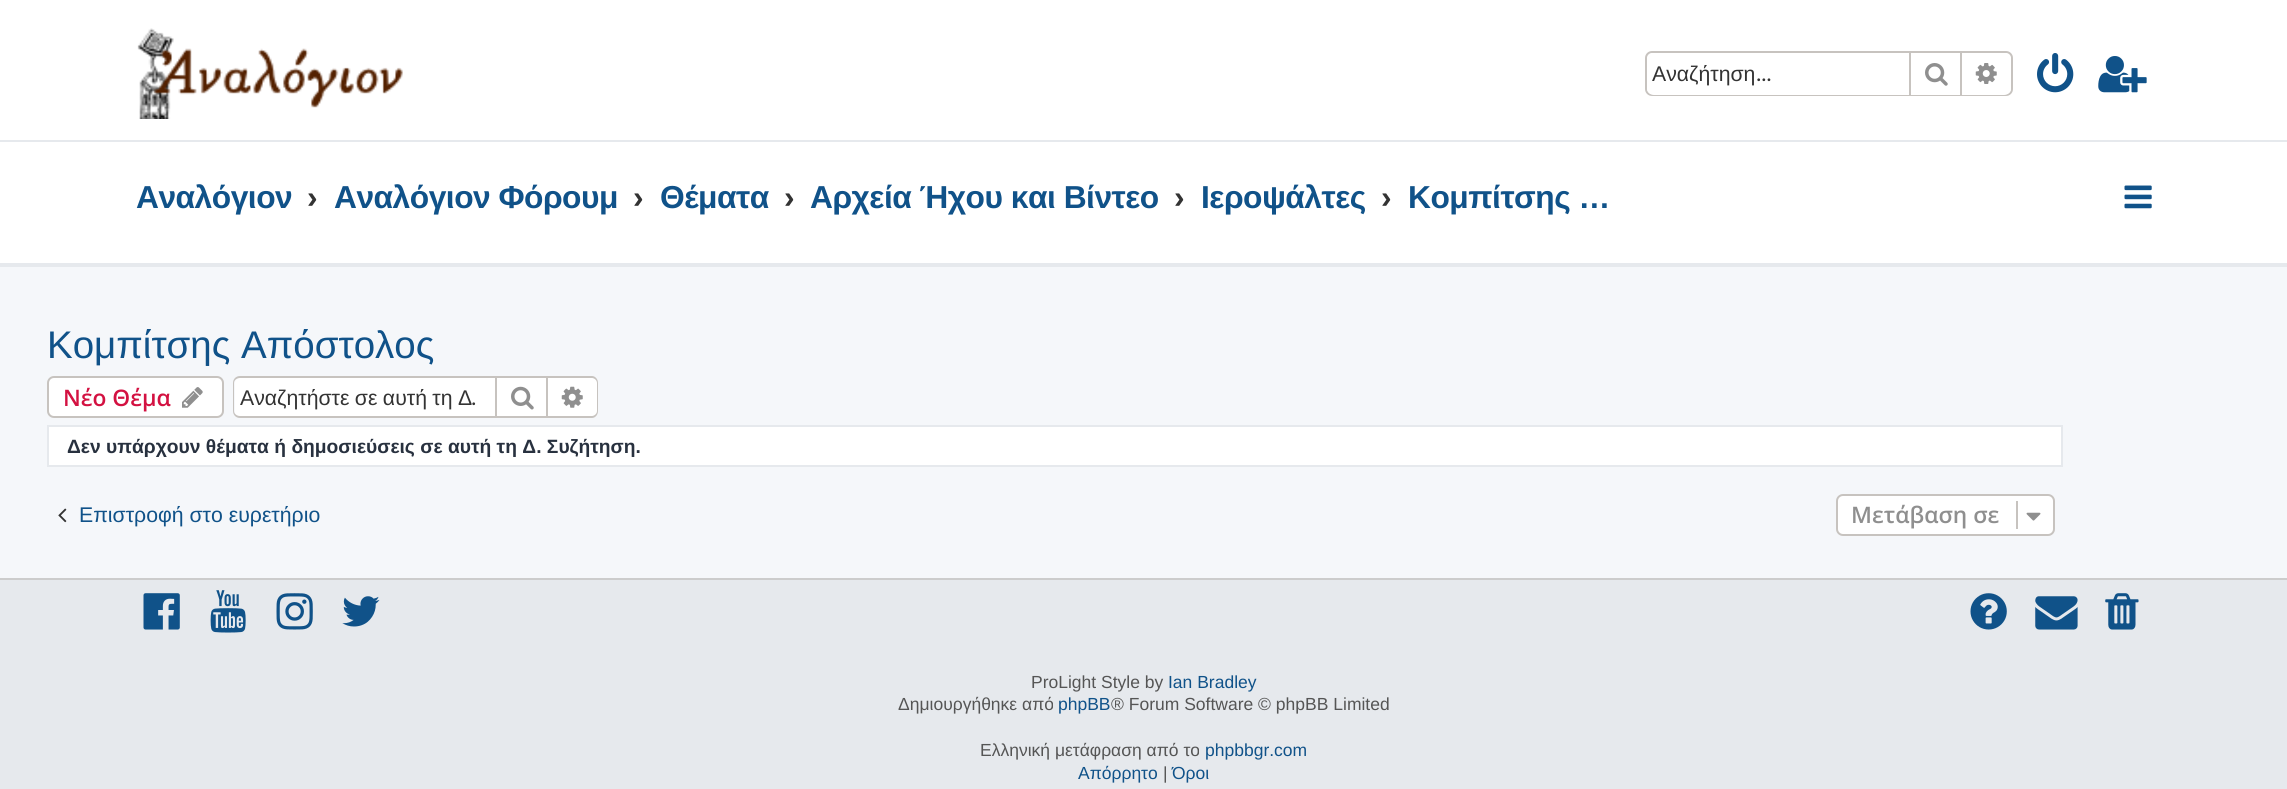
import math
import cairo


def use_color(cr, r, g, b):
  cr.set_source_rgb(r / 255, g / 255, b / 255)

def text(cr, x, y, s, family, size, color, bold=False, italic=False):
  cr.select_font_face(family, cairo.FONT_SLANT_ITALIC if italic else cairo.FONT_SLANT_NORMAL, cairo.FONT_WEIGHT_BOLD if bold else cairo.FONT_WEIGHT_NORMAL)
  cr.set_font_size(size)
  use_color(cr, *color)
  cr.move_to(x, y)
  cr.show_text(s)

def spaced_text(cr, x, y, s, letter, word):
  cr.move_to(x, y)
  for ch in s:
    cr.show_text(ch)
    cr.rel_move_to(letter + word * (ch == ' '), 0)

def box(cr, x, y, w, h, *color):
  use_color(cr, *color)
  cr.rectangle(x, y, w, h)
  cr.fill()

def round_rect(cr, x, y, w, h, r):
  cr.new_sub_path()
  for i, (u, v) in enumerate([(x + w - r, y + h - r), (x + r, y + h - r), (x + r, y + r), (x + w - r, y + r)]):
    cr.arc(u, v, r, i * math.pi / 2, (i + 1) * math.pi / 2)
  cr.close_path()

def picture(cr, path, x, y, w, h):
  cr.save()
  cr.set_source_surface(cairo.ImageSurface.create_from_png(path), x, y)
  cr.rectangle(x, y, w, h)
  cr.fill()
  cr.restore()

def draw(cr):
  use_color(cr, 245, 247, 250)
  cr.paint()
  box(cr, 0, 0, 2287, 140, 255, 255, 255)
  box(cr, 0, 140, 2287, 2, 230, 233, 237)
  picture(cr, "img_01.png", 137, 28, 266, 91)
  round_rect(cr, 1646, 52, 366, 43, 6)
  use_color(cr, 199, 195, 191)
  cr.stroke()
  use_color(cr, 255, 255, 255)
  cr.new_path()
  cr.move_to(1654, 53)
  cr.line_to(1909, 53)
  cr.line_to(1909, 95)
  cr.line_to(1654, 95)
  cr.curve_to(1650, 95, 1647, 92, 1647, 88)
  cr.line_to(1647, 60)
  cr.curve_to(1647, 56, 1650, 53, 1654, 53)
  cr.close_path()
  cr.fill()
  box(cr, 1911, 94, 49, 1, 255, 255, 255)
  box(cr, 1960, 53, 2, 42, 199, 195, 191)
  box(cr, 1909, 53, 2, 42, 199, 195, 191)
  picture(cr, "img_02.png", 1925, 63, 23, 23)
  use_color(cr, 255, 255, 255)
  cr.new_path()
  cr.move_to(1962, 53)
  cr.line_to(2004, 53)
  cr.curve_to(2008, 53, 2011, 56, 2011, 60)
  cr.line_to(2011, 88)
  cr.curve_to(2011, 92, 2008, 95, 2004, 95)
  cr.line_to(1962, 95)
  cr.close_path()
  cr.fill()
  picture(cr, "img_03.png", 1975, 63, 22, 21)
  picture(cr, "img_04.png", 2037, 53, 37, 40)
  picture(cr, "img_05.png", 2098, 56, 49, 37)
  box(cr, 0, 142, 2287, 121, 255, 255, 255)
  box(cr, 0, 263, 2287, 4, 230, 233, 237)
  picture(cr, "img_06.png", 2124, 185, 28, 24)
  use_color(cr, 255, 255, 255)
  round_rect(cr, 48, 377, 175, 40, 6)
  cr.fill_preserve()
  use_color(cr, 199, 195, 191)
  cr.stroke()
  picture(cr, "img_07.png", 182, 387, 21, 21)
  use_color(cr, 255, 255, 255)
  cr.new_path()
  cr.move_to(240, 378)
  cr.line_to(495, 378)
  cr.line_to(495, 417)
  cr.line_to(240, 417)
  cr.curve_to(237, 417, 235, 415, 235, 412)
  cr.line_to(235, 383)
  cr.curve_to(235, 380, 237, 378, 240, 378)
  cr.close_path()
  cr.fill()
  use_color(cr, 199, 195, 191)
  cr.set_fill_rule(cairo.FILL_RULE_EVEN_ODD)
  cr.new_path()
  cr.move_to(240, 376)
  cr.line_to(495, 376)
  cr.line_to(495, 418)
  cr.line_to(240, 418)
  cr.curve_to(236, 418, 233, 415, 233, 411)
  cr.line_to(233, 383)
  cr.curve_to(233, 379, 236, 376, 240, 376)
  cr.close_path()
  cr.move_to(240, 378)
  cr.line_to(495, 378)
  cr.line_to(495, 416)
  cr.line_to(240, 416)
  cr.curve_to(237, 416, 234, 414, 234, 411)
  cr.line_to(234, 383)
  cr.curve_to(234, 380, 237, 378, 240, 378)
  cr.close_path()
  cr.fill()
  use_color(cr, 255, 255, 255)
  cr.rectangle(496, 377, 51, 40)
  cr.fill_preserve()
  use_color(cr, 199, 195, 191)
  cr.stroke()
  picture(cr, "img_08.png", 511, 386, 23, 24)
  use_color(cr, 255, 255, 255)
  cr.new_path()
  cr.move_to(548, 378)
  cr.line_to(592, 378)
  cr.curve_to(595, 378, 597, 380, 597, 383)
  cr.line_to(597, 412)
  cr.curve_to(597, 415, 595, 417, 592, 417)
  cr.line_to(548, 417)
  cr.close_path()
  cr.fill()
  use_color(cr, 199, 195, 191)
  cr.new_path()
  cr.move_to(548, 376)
  cr.line_to(592, 376)
  cr.curve_to(595, 376, 598, 379, 598, 383)
  cr.line_to(598, 411)
  cr.curve_to(598, 415, 595, 418, 592, 418)
  cr.line_to(548, 418)
  cr.close_path()
  cr.move_to(548, 378)
  cr.line_to(592, 378)
  cr.curve_to(594, 378, 597, 380, 597, 383)
  cr.line_to(597, 411)
  cr.curve_to(597, 414, 594, 416, 592, 416)
  cr.line_to(548, 416)
  cr.close_path()
  cr.fill()
  picture(cr, "img_09.png", 561, 386, 22, 22)
  use_color(cr, 255, 255, 255)
  cr.rectangle(48, 426, 2014, 40)
  cr.fill_preserve()
  use_color(cr, 230, 233, 237)
  cr.stroke()
  picture(cr, "img_10.png", 58, 508, 9, 15)
  use_color(cr, 255, 255, 255)
  round_rect(cr, 1837, 495, 217, 40, 6)
  cr.fill_preserve()
  use_color(cr, 199, 195, 191)
  cr.stroke()
  box(cr, 2016, 501, 2, 28, 199, 195, 191)
  picture(cr, "img_11.png", 2026, 512, 15, 9)
  box(cr, 0, 580, 2287, 209, 230, 233, 237)
  box(cr, 0, 578, 2287, 2, 204, 204, 204)
  picture(cr, "img_12.png", 143, 593, 37, 37)
  picture(cr, "img_13.png", 210, 590, 36, 43)
  picture(cr, "img_14.png", 276, 593, 37, 37)
  picture(cr, "img_15.png", 342, 596, 38, 31)
  picture(cr, "img_16.png", 1970, 593, 37, 37)
  picture(cr, "img_17.png", 2035, 596, 43, 34)
  picture(cr, "img_18.png", 2105, 593, 34, 37)
  text(cr, 1652, 81, "Αναζήτηση", "Liberation Sans", 21.25, (51, 51, 51))
  text(cr, 1756, 81, "…", "Oxygen", 21.25, (51, 51, 51))
  cr.select_font_face("Liberation Sans", cairo.FONT_SLANT_NORMAL, cairo.FONT_WEIGHT_BOLD)
  cr.set_font_size(31.75)
  use_color(cr, 16, 82, 137)
  spaced_text(cr, 136, 208, "Αναλόγιον", -0.5, 0)
  text(cr, 307, 208, "›", "Liberation Sans", 31.75, (51, 51, 51), bold=True)
  use_color(cr, 16, 82, 137)
  spaced_text(cr, 334, 208, "Αναλόγιον Φόρουμ", -0.5, 0)
  text(cr, 633, 208, "›", "Liberation Sans", 31.75, (51, 51, 51), bold=True)
  use_color(cr, 16, 82, 137)
  spaced_text(cr, 660, 208, "Θέματα", -0.5, 0)
  text(cr, 784, 208, "›", "Liberation Sans", 31.75, (51, 51, 51), bold=True)
  use_color(cr, 16, 82, 137)
  spaced_text(cr, 810, 208, "Αρχεία Ήχου και Βίντεο", -0.5, 0)
  text(cr, 1174, 208, "›", "Liberation Sans", 31.75, (51, 51, 51), bold=True)
  use_color(cr, 16, 82, 137)
  spaced_text(cr, 1201, 208, "Ιεροψάλτες", -0.5, 0)
  text(cr, 1381, 208, "›", "Liberation Sans", 31.75, (51, 51, 51), bold=True)
  use_color(cr, 16, 82, 137)
  spaced_text(cr, 1408, 208, "Κομπίτσης …", -0.5, 0)
  text(cr, 47, 358, "Κομπίτσης Απόστολος", "Liberation Sans", 38.5, (16, 82, 137))
  text(cr, 63, 406, "Νέο Θέμα", "Open Sans SemiBold", 22.75, (211, 17, 65))
  cr.select_font_face("Liberation Sans")
  cr.set_font_size(21.25)
  use_color(cr, 51, 51, 51)
  spaced_text(cr, 240, 405, "Αναζητήστε σε αυτή τη Δ", 0, -0.5)
  text(cr, 471, 405, ".", "Oxygen", 21.25, (51, 51, 51))
  text(cr, 67, 453, "Δεν υπάρχουν θέματα ή δημοσιεύσεις σε αυτή τη Δ. Συζήτηση.", "Liberation Sans", 19.25, (40, 49, 63), bold=True)
  text(cr, 79, 522, "Επιστροφή στο ευρετήριο", "Liberation Sans", 21.25, (16, 82, 137))
  text(cr, 1851, 523, "Μετάβαση σε", "Open Sans SemiBold", 22.75, (143, 143, 143))
  text(cr, 1031, 688, "ProLight Style by", "Liberation Sans", 17.5, (85, 85, 85))
  text(cr, 1168, 688, "Ian Bradley", "Liberation Sans", 17.5, (16, 82, 137))
  text(cr, 898, 710, "Δημιουργήθηκε από", "Liberation Sans", 17.5, (85, 85, 85))
  text(cr, 1058, 710, "phpBB", "Liberation Sans", 17.5, (16, 82, 137))
  text(cr, 1111, 710, "® Forum Software © phpBB Limited", "Liberation Sans", 17.5, (85, 85, 85))
  text(cr, 980, 756, "Ελληνική μετάφραση από το", "Liberation Sans", 17.5, (85, 85, 85))
  text(cr, 1205, 756, "phpbbgr.com", "Liberation Sans", 17.5, (16, 82, 137))
  text(cr, 1078, 779, "Απόρρητο", "Liberation Sans", 17.5, (16, 82, 137))
  text(cr, 1163, 779, "|", "Liberation Sans", 17.5, (85, 85, 85))
  text(cr, 1172, 779, "Όροι", "Liberation Sans", 17.5, (16, 82, 137))


surface = cairo.ImageSurface(cairo.FORMAT_RGB24, 2287, 789)
cr = cairo.Context(surface)
options = cairo.FontOptions()
options.set_hint_metrics(cairo.HINT_METRICS_OFF)
options.set_hint_style(cairo.HINT_STYLE_NONE)
cr.set_font_options(options)
cr.set_miter_limit(4)
draw(cr)
surface.write_to_png("out.png")
